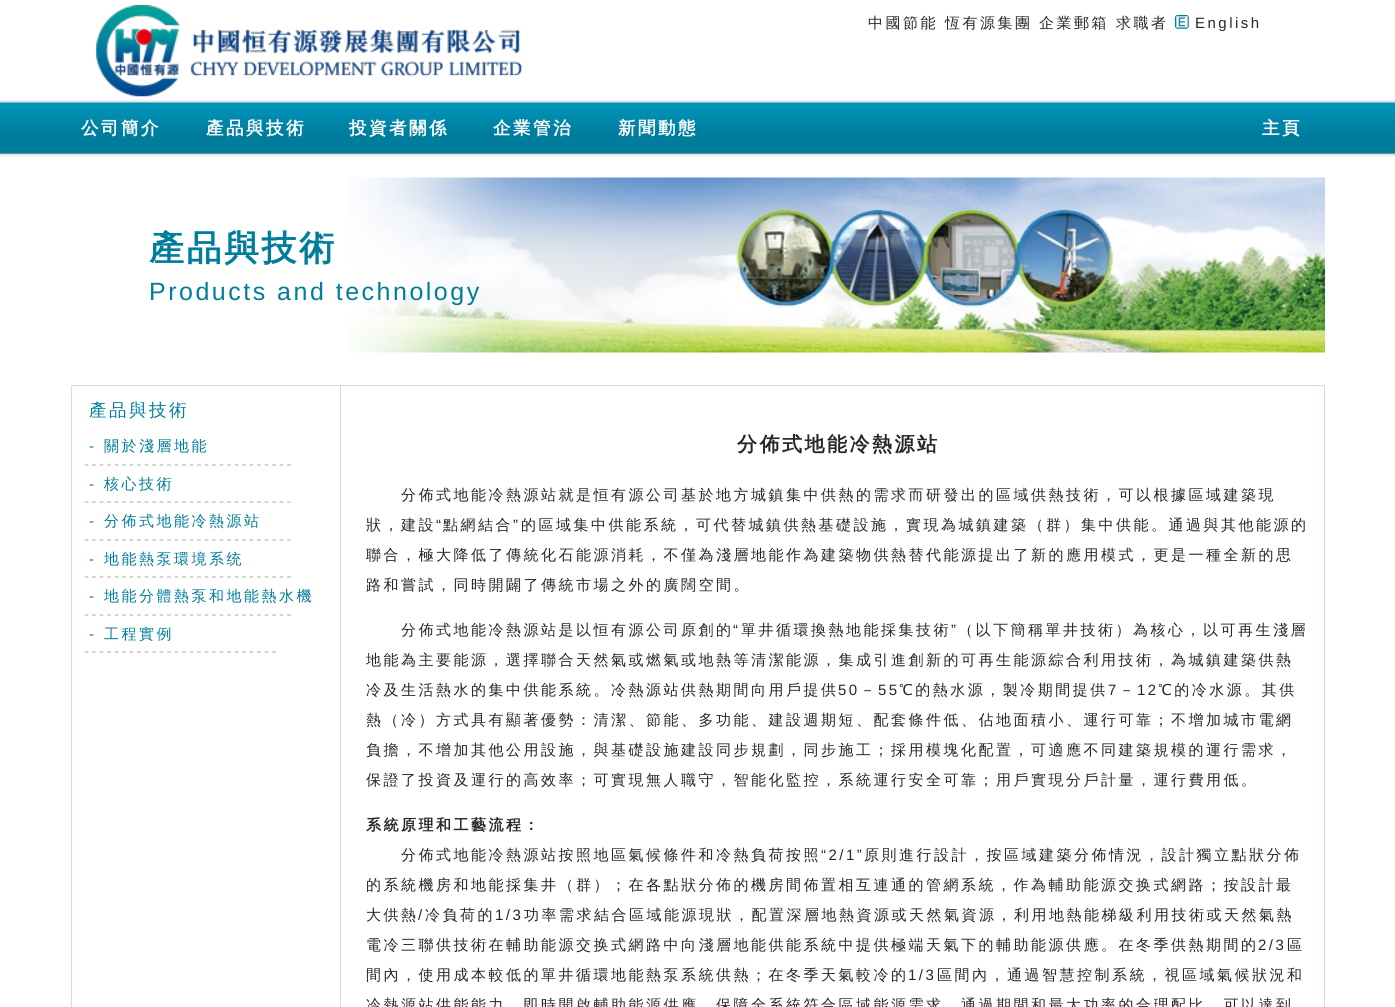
import math
import cairo


def use_color(cr, r, g, b):
  cr.set_source_rgb(r / 255, g / 255, b / 255)

def spaced_text(cr, x, y, s, letter, word):
  cr.move_to(x, y)
  for ch in s:
    cr.show_text(ch)
    cr.rel_move_to(letter + word * (ch == ' '), 0)

def box(cr, x, y, w, h, *color):
  use_color(cr, *color)
  cr.rectangle(x, y, w, h)
  cr.fill()

def picture(cr, path, x, y, w, h):
  cr.save()
  cr.set_source_surface(cairo.ImageSurface.create_from_png(path), x, y)
  cr.rectangle(x, y, w, h)
  cr.fill()
  cr.restore()

def draw(cr):
  use_color(cr, 255, 255, 255)
  cr.paint()
  picture(cr, "img_01.png", 96, 5, 426, 92)
  picture(cr, "img_02.png", 1175, 15, 14, 14)
  picture(cr, "img_03.png", 0, 100, 1395, 57)
  picture(cr, "img_04.png", 347, 177, 978, 176)
  box(cr, 71, 385, 1254, 1, 206, 223, 222)
  box(cr, 71, 385, 1, 622, 206, 223, 222)
  box(cr, 1324, 385, 1, 622, 206, 223, 222)
  box(cr, 340, 385, 1, 622, 206, 223, 222)
  cr.select_font_face("WenQuanYi Zen Hei Medium")
  cr.set_font_size(15)
  use_color(cr, 39, 39, 39)
  spaced_text(cr, 868, 28, "中國節能", 2.5, 0)
  spaced_text(cr, 945, 28, "恆有源集團", 2.5, 0)
  spaced_text(cr, 1039, 28, "企業郵箱", 2.5, 0)
  spaced_text(cr, 1116, 28, "求職者", 2.5, 0)
  cr.select_font_face("Liberation Sans")
  spaced_text(cr, 1195, 28, "English", 2.5, 0)
  cr.select_font_face("WenQuanYi Zen Hei", cairo.FONT_SLANT_NORMAL, cairo.FONT_WEIGHT_BOLD)
  cr.set_font_size(17.5)
  use_color(cr, 255, 255, 255)
  spaced_text(cr, 81, 134, "公司簡介", 2.5, 0)
  spaced_text(cr, 206, 134, "產品與技術", 2.5, 0)
  spaced_text(cr, 349, 134, "投資者關係", 2.5, 0)
  spaced_text(cr, 493, 134, "企業管治", 2.5, 0)
  spaced_text(cr, 618, 134, "新聞動態", 2.5, 0)
  spaced_text(cr, 1262, 134, "主頁", 2.5, 0)
  cr.set_font_size(35)
  use_color(cr, 0, 125, 155)
  spaced_text(cr, 149, 260, "產品與技術", 2.5, 0)
  cr.select_font_face("Liberation Sans")
  cr.set_font_size(25)
  spaced_text(cr, 149, 300, "Products and technology", 2.5, 0)
  cr.select_font_face("WenQuanYi Zen Hei Medium")
  cr.set_font_size(17.5)
  spaced_text(cr, 89, 416, "產品與技術", 2.5, 0)
  cr.select_font_face("Liberation Sans")
  cr.set_font_size(15)
  spaced_text(cr, 89, 451, "-", 2.5, 0)
  cr.select_font_face("WenQuanYi Zen Hei Medium")
  spaced_text(cr, 104, 451, "關於淺層地能", 2.5, 0)
  cr.select_font_face("Liberation Sans")
  use_color(cr, 184, 184, 184)
  spaced_text(cr, 84, 469, "----------------------------", 2.5, 0)
  use_color(cr, 0, 125, 155)
  spaced_text(cr, 89, 489, "-", 2.5, 0)
  cr.select_font_face("WenQuanYi Zen Hei Medium")
  spaced_text(cr, 104, 489, "核心技術", 2.5, 0)
  cr.select_font_face("Liberation Sans")
  use_color(cr, 184, 184, 184)
  spaced_text(cr, 84, 506, "----------------------------", 2.5, 0)
  use_color(cr, 0, 125, 155)
  spaced_text(cr, 89, 526, "-", 2.5, 0)
  cr.select_font_face("WenQuanYi Zen Hei Medium")
  spaced_text(cr, 104, 526, "分佈式地能冷熱源站", 2.5, 0)
  cr.select_font_face("Liberation Sans")
  use_color(cr, 184, 184, 184)
  spaced_text(cr, 84, 544, "----------------------------", 2.5, 0)
  use_color(cr, 0, 125, 155)
  spaced_text(cr, 89, 564, "-", 2.5, 0)
  cr.select_font_face("WenQuanYi Zen Hei Medium")
  spaced_text(cr, 104, 564, "地能熱泵環境系统", 2.5, 0)
  cr.select_font_face("Liberation Sans")
  use_color(cr, 184, 184, 184)
  spaced_text(cr, 84, 581, "----------------------------", 2.5, 0)
  use_color(cr, 0, 125, 155)
  spaced_text(cr, 89, 601, "-", 2.5, 0)
  cr.select_font_face("WenQuanYi Zen Hei Medium")
  spaced_text(cr, 104, 601, "地能分體熱泵和地能熱水機", 2.5, 0)
  cr.select_font_face("Liberation Sans")
  use_color(cr, 184, 184, 184)
  spaced_text(cr, 84, 619, "----------------------------", 2.5, 0)
  use_color(cr, 0, 125, 155)
  spaced_text(cr, 89, 639, "-", 2.5, 0)
  cr.select_font_face("WenQuanYi Zen Hei Medium")
  spaced_text(cr, 104, 639, "工程實例", 2.5, 0)
  cr.select_font_face("Liberation Sans")
  use_color(cr, 184, 184, 184)
  spaced_text(cr, 84, 656, "--------------------------", 2.5, 0)
  cr.select_font_face("WenQuanYi Zen Hei", cairo.FONT_SLANT_NORMAL, cairo.FONT_WEIGHT_BOLD)
  cr.set_font_size(20)
  use_color(cr, 39, 39, 39)
  spaced_text(cr, 737, 451, "分佈式地能冷熱源站", 2.5, 0)
  cr.select_font_face("WenQuanYi Zen Hei Medium")
  cr.set_font_size(15)
  spaced_text(cr, 401, 500, "分佈式地能冷熱源站就是恒有源公司基於地方城鎮集中供熱的需求而研發出的區域供熱技術，可以根據區域建築現", 2.5, 0)
  spaced_text(cr, 366, 530, "狀，建設", 2.5, 0)
  cr.select_font_face("Liberation Sans")
  spaced_text(cr, 436, 530, "“", 2.5, 0)
  cr.select_font_face("WenQuanYi Zen Hei Medium")
  spaced_text(cr, 443, 530, "點網結合", 2.5, 0)
  cr.select_font_face("Liberation Sans")
  spaced_text(cr, 513, 530, "”", 2.5, 0)
  cr.select_font_face("WenQuanYi Zen Hei Medium")
  spaced_text(cr, 521, 530, "的區域集中供能系統，可代替城鎮供熱基礎設施，實現為城鎮建築（群）集中供能。通過與其他能源的", 2.5, 0)
  spaced_text(cr, 366, 560, "聯合，極大降低了傳統化石能源消耗，不僅為淺層地能作為建築物供熱替代能源提出了新的應用模式，更是一種全新的思", 2.5, 0)
  spaced_text(cr, 366, 590, "路和嘗試，同時開闢了傳統市場之外的廣闊空間。", 2.5, 0)
  spaced_text(cr, 401, 635, "分佈式地能冷熱源站是以恒有源公司原創的", 2.5, 0)
  cr.select_font_face("Liberation Sans")
  spaced_text(cr, 733, 635, "“", 2.5, 0)
  cr.select_font_face("WenQuanYi Zen Hei Medium")
  spaced_text(cr, 741, 635, "單井循環換熱地能採集技術", 2.5, 0)
  cr.select_font_face("Liberation Sans")
  spaced_text(cr, 951, 635, "”", 2.5, 0)
  cr.select_font_face("WenQuanYi Zen Hei Medium")
  spaced_text(cr, 958, 635, "（以下簡稱單井技術）為核心，以可再生淺層", 2.5, 0)
  spaced_text(cr, 366, 665, "地能為主要能源，選擇聯合天然氣或燃氣或地熱等清潔能源，集成引進創新的可再生能源綜合利用技術，為城鎮建築供熱", 2.5, 0)
  spaced_text(cr, 366, 695, "冷及生活熱水的集中供能系統。冷熱源站供熱期間向用戶提供", 2.5, 0)
  cr.select_font_face("Liberation Sans")
  spaced_text(cr, 838, 695, "50", 2.5, 0)
  cr.select_font_face("WenQuanYi Zen Hei Medium")
  spaced_text(cr, 860, 695, "－", 2.5, 0)
  cr.select_font_face("Liberation Sans")
  spaced_text(cr, 878, 695, "55", 2.5, 0)
  cr.select_font_face("WenQuanYi Zen Hei Medium")
  spaced_text(cr, 899, 695, "℃的熱水源，製冷期間提供", 2.5, 0)
  cr.select_font_face("Liberation Sans")
  spaced_text(cr, 1108, 695, "7", 2.5, 0)
  cr.select_font_face("WenQuanYi Zen Hei Medium")
  spaced_text(cr, 1119, 695, "－", 2.5, 0)
  cr.select_font_face("Liberation Sans")
  spaced_text(cr, 1137, 695, "12", 2.5, 0)
  cr.select_font_face("WenQuanYi Zen Hei Medium")
  spaced_text(cr, 1158, 695, "℃的冷水源。其供", 2.5, 0)
  spaced_text(cr, 366, 725, "熱（冷）方式具有顯著優勢：清潔、節能、多功能、建設週期短、配套條件低、佔地面積小、運行可靠；不增加城市電網", 2.5, 0)
  spaced_text(cr, 366, 755, "負擔，不增加其他公用設施，與基礎設施建設同步規劃，同步施工；採用模塊化配置，可適應不同建築規模的運行需求，", 2.5, 0)
  spaced_text(cr, 366, 785, "保證了投資及運行的高效率；可實現無人職守，智能化監控，系統運行安全可靠；用戶實現分戶計量，運行費用低。", 2.5, 0)
  cr.select_font_face("WenQuanYi Zen Hei", cairo.FONT_SLANT_NORMAL, cairo.FONT_WEIGHT_BOLD)
  spaced_text(cr, 366, 830, "系統原理和工藝流程：", 2.5, 0)
  cr.select_font_face("WenQuanYi Zen Hei Medium")
  spaced_text(cr, 401, 860, "分佈式地能冷熱源站按照地區氣候條件和冷熱負荷按照", 2.5, 0)
  cr.select_font_face("Liberation Sans")
  spaced_text(cr, 821, 860, "“2/1”", 2.5, 0)
  cr.select_font_face("WenQuanYi Zen Hei Medium")
  spaced_text(cr, 864, 860, "原則進行設計，按區域建築分佈情況，設計獨立點狀分佈", 2.5, 0)
  spaced_text(cr, 366, 890, "的系統機房和地能採集井（群）；在各點狀分佈的機房間佈置相互連通的管網系統，作為輔助能源交换式網路；按設計最", 2.5, 0)
  spaced_text(cr, 366, 920, "大供熱", 2.5, 0)
  cr.select_font_face("Liberation Sans")
  spaced_text(cr, 418, 920, "/", 2.5, 0)
  cr.select_font_face("WenQuanYi Zen Hei Medium")
  spaced_text(cr, 425, 920, "冷負荷的", 2.5, 0)
  cr.select_font_face("Liberation Sans")
  spaced_text(cr, 495, 920, "1/3", 2.5, 0)
  cr.select_font_face("WenQuanYi Zen Hei Medium")
  spaced_text(cr, 524, 920, "功率需求結合區域能源現狀，配置深層地熱資源或天然氣資源，利用地熱能梯級利用技術或天然氣熱", 2.5, 0)
  spaced_text(cr, 366, 950, "電冷三聯供技術在輔助能源交换式網路中向淺層地能供能系統中提供極端天氣下的輔助能源供應。在冬季供熱期間的", 2.5, 0)
  cr.select_font_face("Liberation Sans")
  spaced_text(cr, 1258, 950, "2/3", 2.5, 0)
  cr.select_font_face("WenQuanYi Zen Hei Medium")
  spaced_text(cr, 1287, 950, "區", 2.5, 0)
  spaced_text(cr, 366, 980, "間內，使用成本較低的單井循環地能熱泵系統供熱；在冬季天氣較冷的", 2.5, 0)
  cr.select_font_face("Liberation Sans")
  spaced_text(cr, 908, 980, "1/3", 2.5, 0)
  cr.select_font_face("WenQuanYi Zen Hei Medium")
  spaced_text(cr, 937, 980, "區間內，通過智慧控制系統，視區域氣候狀況和", 2.5, 0)
  spaced_text(cr, 366, 1010, "冷熱源站供能能力，即時開啟輔助能源供應，保障全系統符合區域能源需求。通過期間和最大功率的合理配比，可以達到", 2.5, 0)


surface = cairo.ImageSurface(cairo.FORMAT_RGB24, 1395, 1007)
cr = cairo.Context(surface)
options = cairo.FontOptions()
options.set_hint_metrics(cairo.HINT_METRICS_OFF)
options.set_hint_style(cairo.HINT_STYLE_NONE)
cr.set_font_options(options)
cr.set_miter_limit(4)
draw(cr)
surface.write_to_png("out.png")
